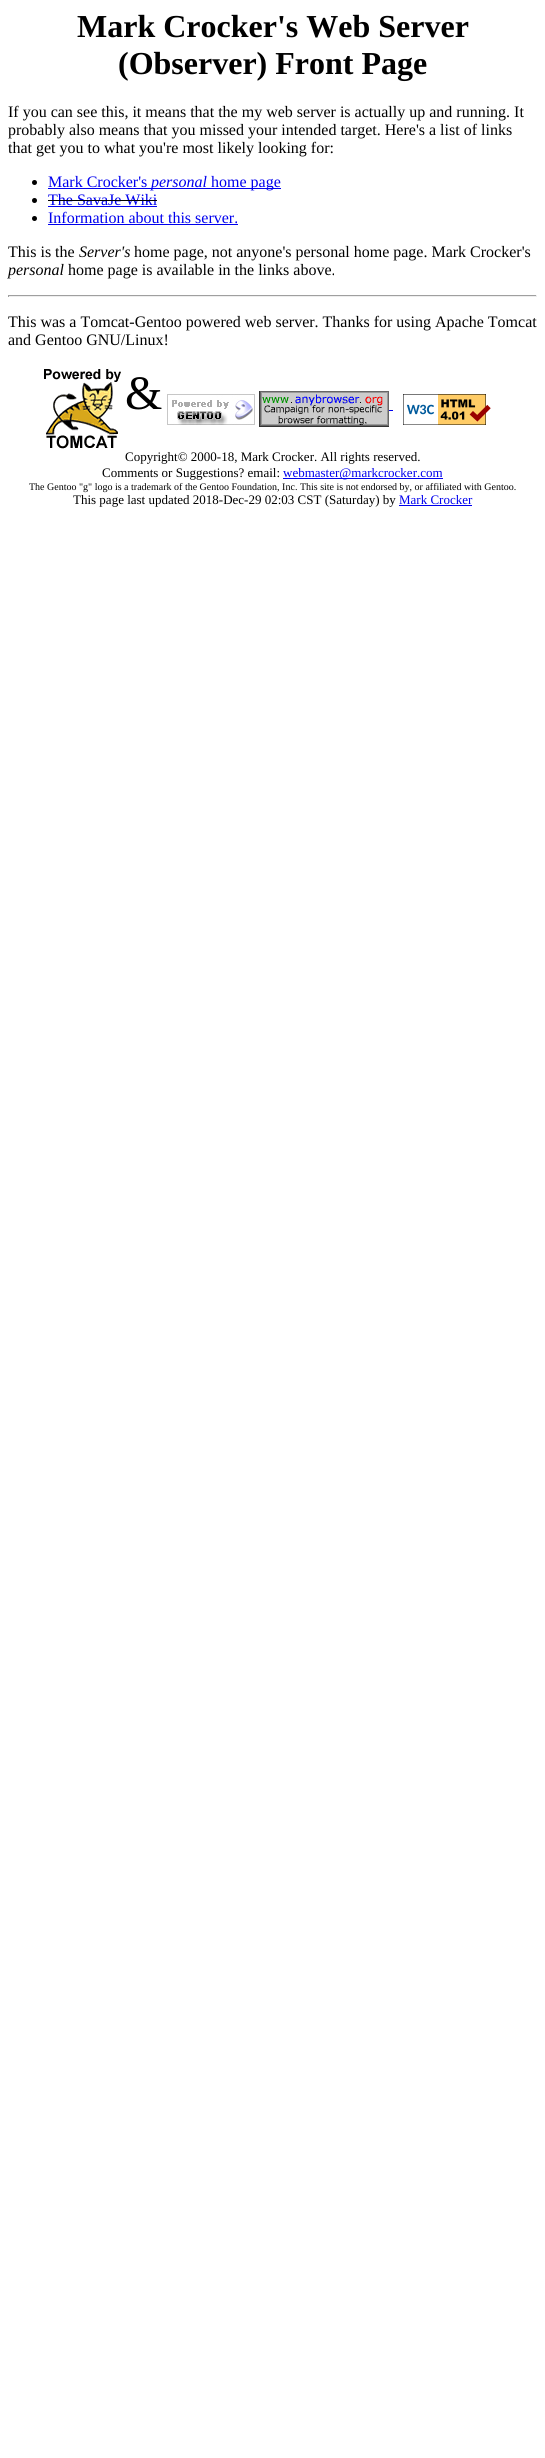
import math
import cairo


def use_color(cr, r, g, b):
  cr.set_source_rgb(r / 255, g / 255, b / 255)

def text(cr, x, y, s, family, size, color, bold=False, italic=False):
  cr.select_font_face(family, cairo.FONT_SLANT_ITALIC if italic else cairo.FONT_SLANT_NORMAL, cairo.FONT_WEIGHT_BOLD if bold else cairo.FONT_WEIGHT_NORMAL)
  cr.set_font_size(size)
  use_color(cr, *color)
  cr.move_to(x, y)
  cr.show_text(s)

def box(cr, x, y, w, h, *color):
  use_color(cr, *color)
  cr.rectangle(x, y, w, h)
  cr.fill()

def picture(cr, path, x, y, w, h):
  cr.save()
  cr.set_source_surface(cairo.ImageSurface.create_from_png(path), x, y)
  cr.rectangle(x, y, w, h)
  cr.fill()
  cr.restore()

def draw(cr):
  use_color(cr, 255, 255, 255)
  cr.paint()
  use_color(cr, 0, 0, 0)
  cr.arc(34.5, 182.5, 2.5, 0, 2 * math.pi)
  cr.fill()
  box(cr, 48, 188, 233, 1, 0, 0, 238)
  use_color(cr, 0, 0, 0)
  cr.arc(34.5, 200.5, 2.5, 0, 2 * math.pi)
  cr.fill()
  box(cr, 48, 206, 109, 1, 0, 0, 238)
  use_color(cr, 0, 0, 0)
  cr.arc(34.5, 218.5, 2.5, 0, 2 * math.pi)
  cr.fill()
  box(cr, 48, 224, 190, 1, 0, 0, 238)
  box(cr, 8, 295, 529, 1, 159, 159, 159)
  box(cr, 536, 295, 1, 2, 238, 238, 238)
  box(cr, 8, 296, 529, 1, 238, 238, 238)
  box(cr, 8, 295, 1, 2, 159, 159, 159)
  picture(cr, "img_01.png", 44, 369, 77, 80)
  picture(cr, "img_02.png", 167, 394, 88, 31)
  picture(cr, "img_03.png", 259, 391, 130, 36)
  box(cr, 389, 410, 4, 1, 0, 0, 238)
  picture(cr, "img_04.png", 403, 394, 88, 31)
  box(cr, 283, 478, 160, 1, 0, 0, 238)
  box(cr, 399, 505, 73, 1, 0, 0, 238)
  text(cr, 77, 37, "Mark Crocker's Web Server", "Liberation Serif", 32, (0, 0, 0), bold=True)
  text(cr, 118, 74, "(Observer) Front Page", "Liberation Serif", 32, (0, 0, 0), bold=True)
  text(cr, 8, 117, "If you can see this, it means that the my web server is actually up and running. It", "Liberation Serif", 16, (0, 0, 0))
  text(cr, 8, 135, "probably also means that you missed your intended target. Here's a list of links", "Liberation Serif", 16, (0, 0, 0))
  text(cr, 8, 153, "that get you to what you're most likely looking for:", "Liberation Serif", 16, (0, 0, 0))
  text(cr, 48, 187, "Mark Crocker's", "Liberation Serif", 16, (0, 0, 238))
  text(cr, 151, 187, "personal", "Liberation Serif", 16, (0, 0, 238), italic=True)
  text(cr, 211, 187, "home page", "Liberation Serif", 16, (0, 0, 238))
  text(cr, 48, 205, "The SavaJe Wiki", "Liberation Serif", 16, (0, 0, 238))
  box(cr, 48, 200, 109, 1, 0, 0, 0)
  text(cr, 48, 223, "Information about this server.", "Liberation Serif", 16, (0, 0, 238))
  text(cr, 8, 257, "This is the", "Liberation Serif", 16, (0, 0, 0))
  text(cr, 79, 257, "Server's", "Liberation Serif", 16, (0, 0, 0), italic=True)
  text(cr, 134, 257, "home page, not anyone's personal home page. Mark Crocker's", "Liberation Serif", 16, (0, 0, 0))
  text(cr, 8, 275, "personal", "Liberation Serif", 16, (0, 0, 0), italic=True)
  text(cr, 68, 275, "home page is available in the links above.", "Liberation Serif", 16, (0, 0, 0))
  text(cr, 8, 327, "This was a Tomcat-Gentoo powered web server. Thanks for using Apache Tomcat", "Liberation Serif", 16, (0, 0, 0))
  text(cr, 8, 345, "and Gentoo GNU/Linux!", "Liberation Serif", 16, (0, 0, 0))
  text(cr, 125, 409, "&", "Liberation Serif", 48, (0, 0, 0))
  text(cr, 125, 461, "Copyright© 2000-18, Mark Crocker. All rights reserved.", "Liberation Serif", 13, (0, 0, 0))
  text(cr, 102, 477, "Comments or Suggestions? email:", "Liberation Serif", 13, (0, 0, 0))
  text(cr, 283, 477, "webmaster@markcrocker.com", "Liberation Serif", 13, (0, 0, 238))
  text(cr, 29, 490, "The Gentoo \"g\" logo is a trademark of the Gentoo Foundation, Inc. This site is not endorsed by, or affiliated with Gentoo.", "Liberation Serif", 10, (0, 0, 0))
  text(cr, 73, 504, "This page last updated 2018-Dec-29 02:03 CST (Saturday) by", "Liberation Serif", 13, (0, 0, 0))
  text(cr, 399, 504, "Mark Crocker", "Liberation Serif", 13, (0, 0, 238))


surface = cairo.ImageSurface(cairo.FORMAT_RGB24, 545, 2458)
cr = cairo.Context(surface)
options = cairo.FontOptions()
options.set_hint_metrics(cairo.HINT_METRICS_OFF)
options.set_hint_style(cairo.HINT_STYLE_NONE)
cr.set_font_options(options)
cr.set_miter_limit(4)
draw(cr)
surface.write_to_png("out.png")
